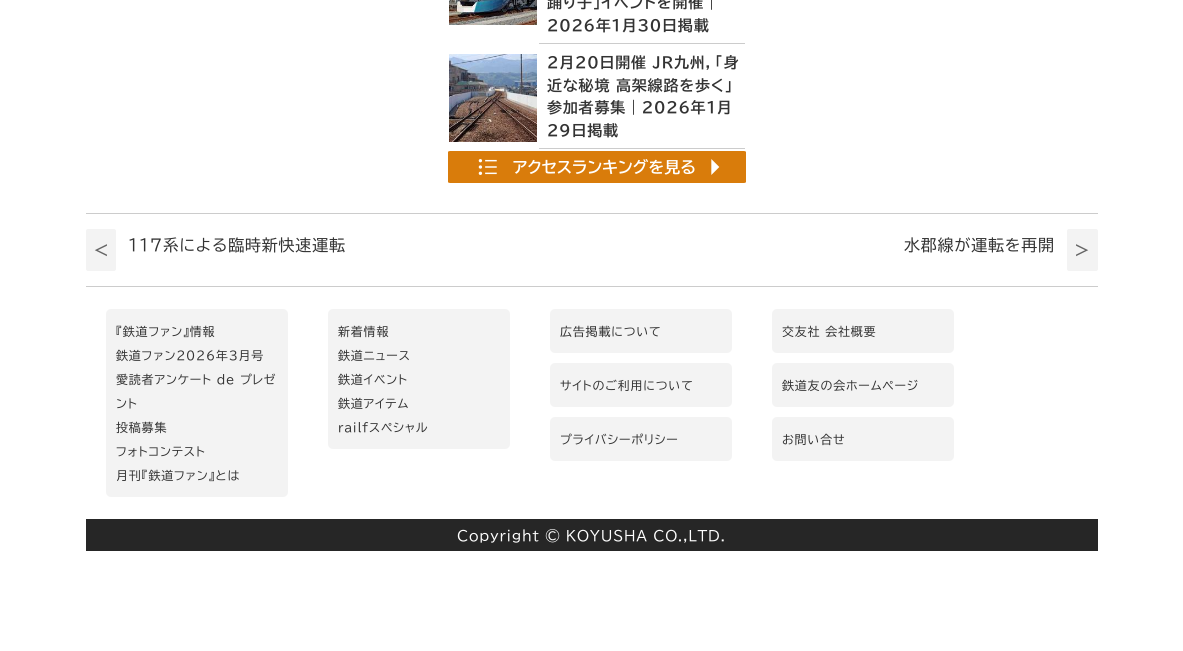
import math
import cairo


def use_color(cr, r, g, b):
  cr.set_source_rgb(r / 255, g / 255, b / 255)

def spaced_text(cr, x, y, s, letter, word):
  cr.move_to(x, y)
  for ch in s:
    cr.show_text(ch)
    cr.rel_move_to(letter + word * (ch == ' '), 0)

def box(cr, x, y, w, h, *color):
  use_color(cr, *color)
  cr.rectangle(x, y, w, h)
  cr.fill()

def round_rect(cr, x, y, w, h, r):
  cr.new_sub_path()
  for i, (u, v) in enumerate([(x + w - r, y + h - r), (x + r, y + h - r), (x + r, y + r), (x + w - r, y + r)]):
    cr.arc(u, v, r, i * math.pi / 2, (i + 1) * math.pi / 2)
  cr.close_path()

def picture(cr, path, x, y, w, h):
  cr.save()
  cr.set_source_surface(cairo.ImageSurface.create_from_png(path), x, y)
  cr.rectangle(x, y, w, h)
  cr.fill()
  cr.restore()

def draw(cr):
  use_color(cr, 255, 255, 255)
  cr.paint()
  picture(cr, "img_01.png", 449, 0, 88, 25)
  box(cr, 539, 43, 206, 1, 204, 204, 204)
  picture(cr, "img_02.png", 449, 54, 88, 88)
  box(cr, 539, 148, 206, 1, 204, 204, 204)
  picture(cr, "img_03.png", 448, 151, 298, 32)
  box(cr, 86, 213, 1012, 1, 204, 204, 204)
  use_color(cr, 243, 243, 243)
  round_rect(cr, 86, 229, 30, 42, 2)
  cr.fill()
  round_rect(cr, 1067, 229, 31, 42, 2)
  cr.fill()
  box(cr, 86, 286, 1012, 1, 204, 204, 204)
  use_color(cr, 243, 243, 243)
  round_rect(cr, 106, 309, 182, 188, 5)
  cr.fill()
  round_rect(cr, 328, 309, 182, 140, 5)
  cr.fill()
  round_rect(cr, 550, 309, 182, 44, 5)
  cr.fill()
  round_rect(cr, 550, 363, 182, 44, 5)
  cr.fill()
  round_rect(cr, 550, 417, 182, 44, 5)
  cr.fill()
  round_rect(cr, 772, 309, 182, 44, 5)
  cr.fill()
  round_rect(cr, 772, 363, 182, 44, 5)
  cr.fill()
  round_rect(cr, 772, 417, 182, 44, 5)
  cr.fill()
  box(cr, 86, 519, 1012, 32, 38, 38, 38)
  cr.select_font_face("BIZ UDPGothic", cairo.FONT_SLANT_NORMAL, cairo.FONT_WEIGHT_BOLD)
  cr.set_font_size(15)
  use_color(cr, 51, 51, 51)
  spaced_text(cr, 547, 8, "踊り子」イベントを開催｜", 0.8, 0)
  spaced_text(cr, 547, 31, "2026年1月30日掲載", 0.8, 0)
  spaced_text(cr, 547, 68, "2月20日開催 JR九州，「身", 0.8, 0)
  spaced_text(cr, 547, 91, "近な秘境 高架線路を歩く」", 0.8, 0)
  spaced_text(cr, 547, 113, "参加者募集｜2026年1月", 0.8, 0)
  spaced_text(cr, 547, 136, "29日掲載", 0.8, 0)
  cr.set_font_size(18)
  use_color(cr, 102, 102, 102)
  spaced_text(cr, 92, 257, "＜", 0.8, 0)
  cr.select_font_face("BIZ UDPGothic")
  cr.set_font_size(16)
  use_color(cr, 51, 51, 51)
  spaced_text(cr, 128, 251, "117系による臨時新快速運転", 0.8, 0)
  spaced_text(cr, 904, 251, "水郡線が運転を再開", 0.8, 0)
  cr.select_font_face("BIZ UDPGothic", cairo.FONT_SLANT_NORMAL, cairo.FONT_WEIGHT_BOLD)
  cr.set_font_size(18)
  use_color(cr, 102, 102, 102)
  spaced_text(cr, 1073, 257, "＞", 0.8, 0)
  cr.select_font_face("BIZ UDPGothic")
  cr.set_font_size(12)
  use_color(cr, 51, 51, 51)
  spaced_text(cr, 116, 336, "『鉄道ファン』情報", 0.8, 0)
  spaced_text(cr, 116, 360, "鉄道ファン2026年3月号", 0.8, 0)
  spaced_text(cr, 116, 384, "愛読者アンケート de プレゼ", 0.8, 0)
  spaced_text(cr, 116, 408, "ント", 0.8, 0)
  spaced_text(cr, 116, 432, "投稿募集", 0.8, 0)
  spaced_text(cr, 116, 456, "フォトコンテスト", 0.8, 0)
  spaced_text(cr, 116, 480, "月刊『鉄道ファン』とは", 0.8, 0)
  spaced_text(cr, 338, 336, "新着情報", 0.8, 0)
  spaced_text(cr, 338, 360, "鉄道ニュース", 0.8, 0)
  spaced_text(cr, 338, 384, "鉄道イベント", 0.8, 0)
  spaced_text(cr, 338, 408, "鉄道アイテム", 0.8, 0)
  spaced_text(cr, 338, 432, "railfスペシャル", 0.8, 0)
  spaced_text(cr, 560, 336, "広告掲載について", 0.8, 0)
  spaced_text(cr, 560, 390, "サイトのご利用について", 0.8, 0)
  spaced_text(cr, 560, 444, "プライバシーポリシー", 0.8, 0)
  spaced_text(cr, 782, 336, "交友社 会社概要", 0.8, 0)
  spaced_text(cr, 782, 390, "鉄道友の会ホームページ", 0.8, 0)
  spaced_text(cr, 782, 444, "お問い合せ", 0.8, 0)
  cr.set_font_size(14)
  use_color(cr, 255, 255, 255)
  spaced_text(cr, 457, 541, "Copyright © KOYUSHA CO.,LTD.", 0.8, 0)


surface = cairo.ImageSurface(cairo.FORMAT_RGB24, 1183, 651)
cr = cairo.Context(surface)
options = cairo.FontOptions()
options.set_hint_metrics(cairo.HINT_METRICS_OFF)
options.set_hint_style(cairo.HINT_STYLE_NONE)
cr.set_font_options(options)
cr.set_miter_limit(4)
draw(cr)
surface.write_to_png("out.png")
